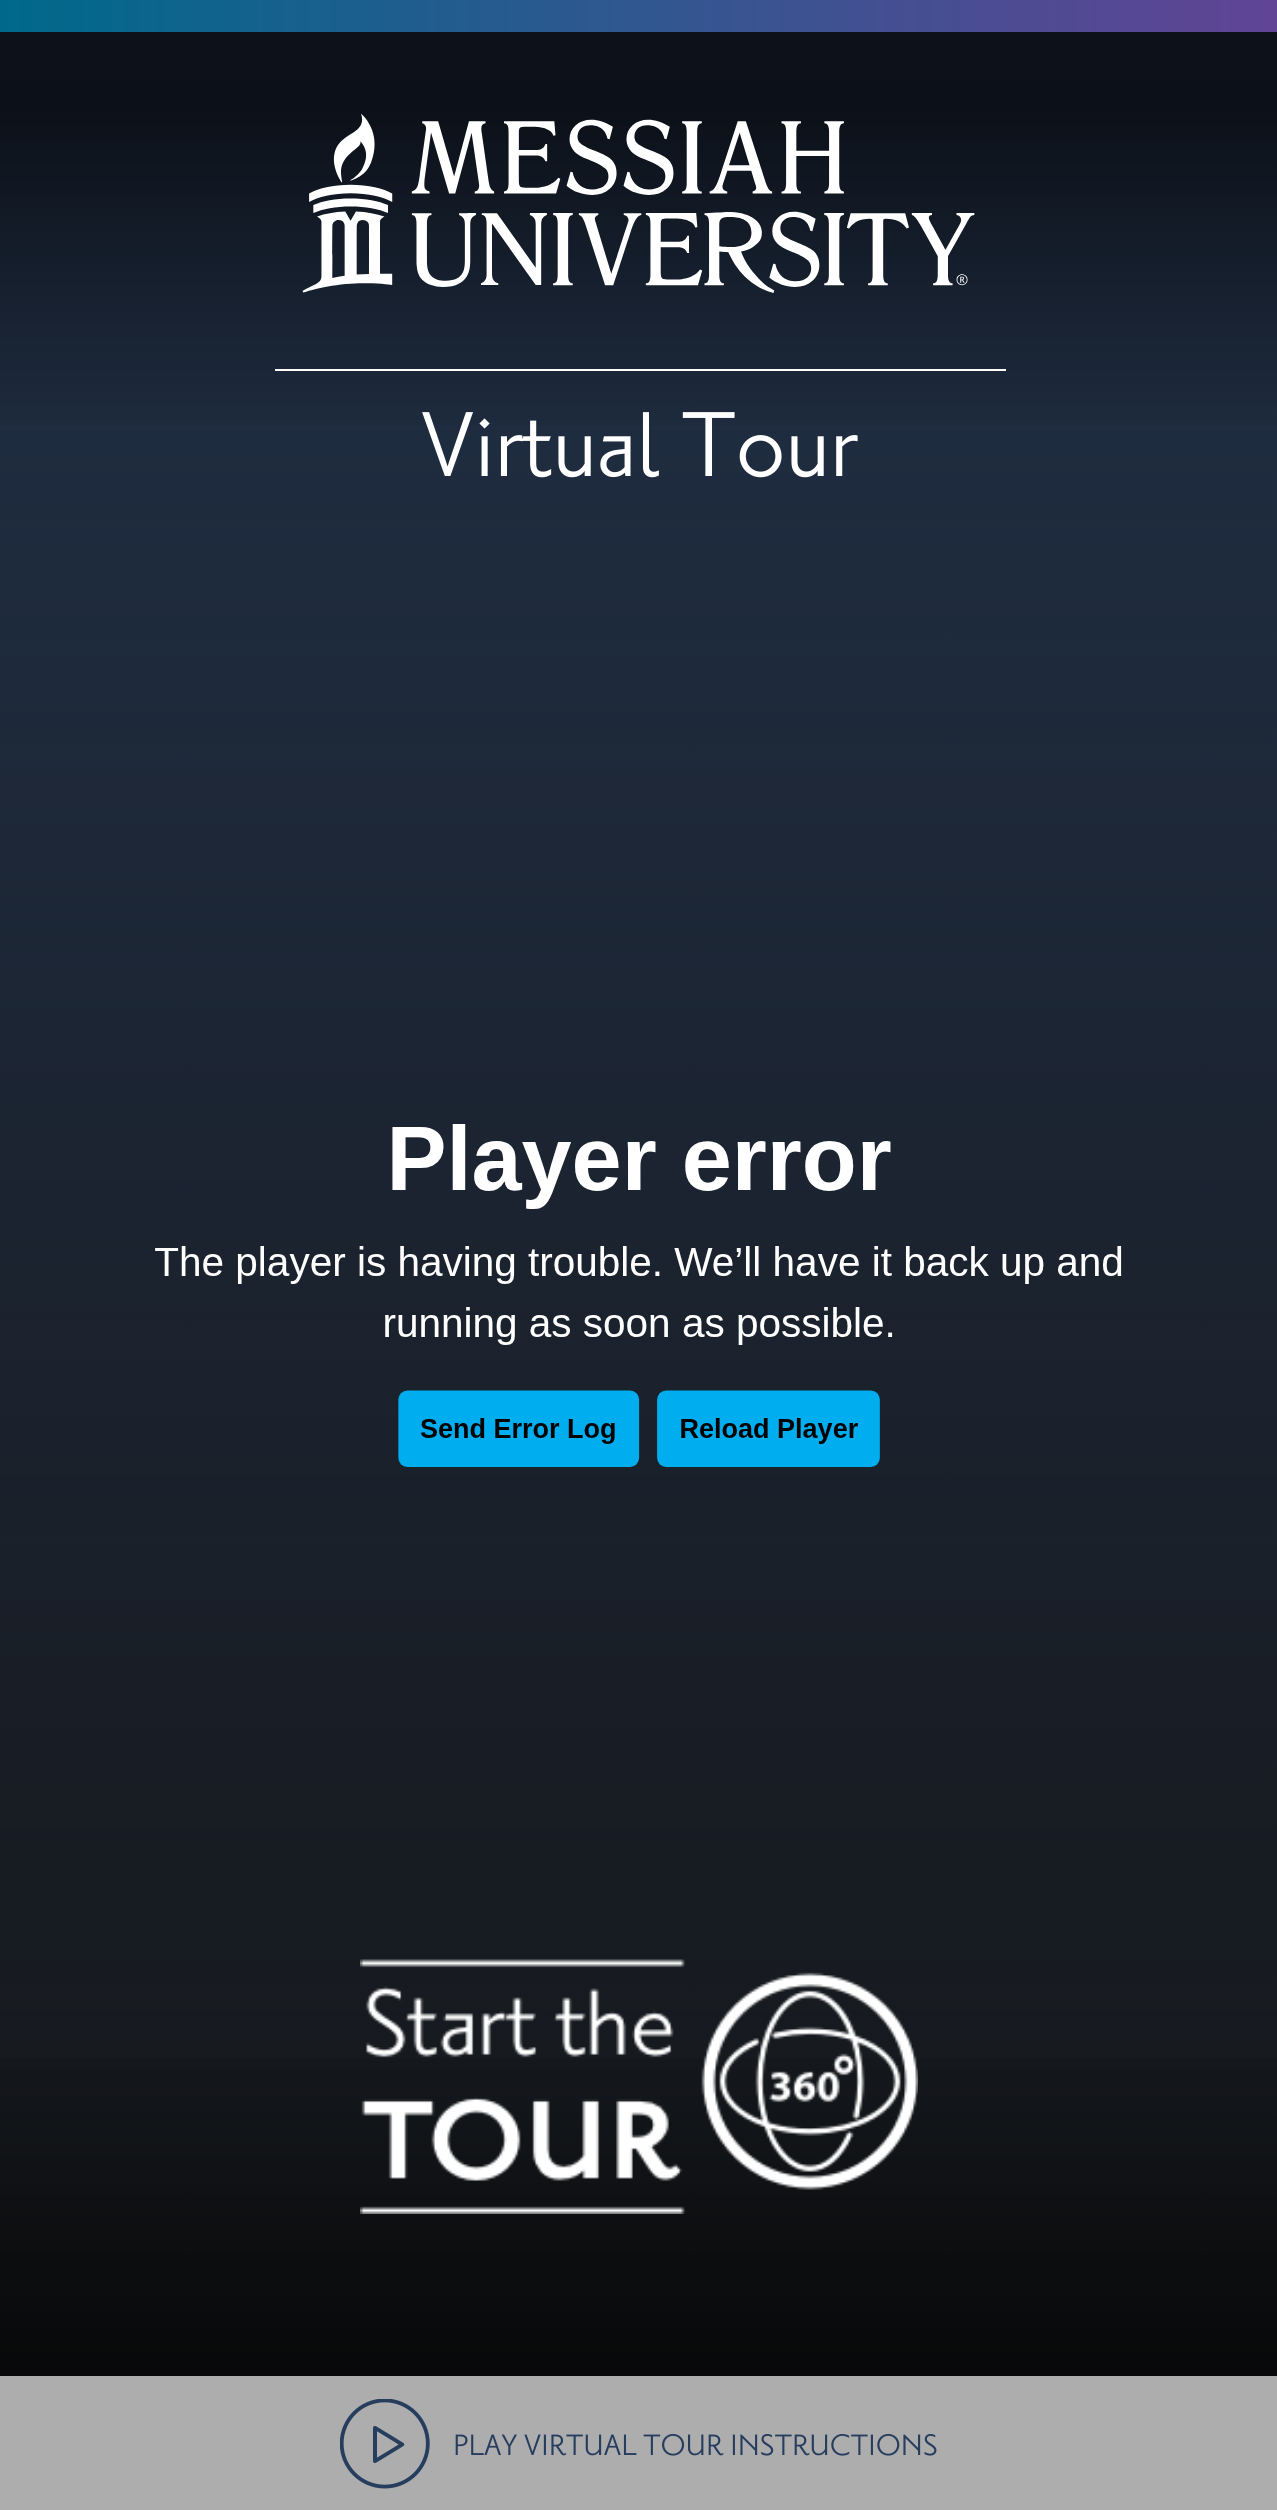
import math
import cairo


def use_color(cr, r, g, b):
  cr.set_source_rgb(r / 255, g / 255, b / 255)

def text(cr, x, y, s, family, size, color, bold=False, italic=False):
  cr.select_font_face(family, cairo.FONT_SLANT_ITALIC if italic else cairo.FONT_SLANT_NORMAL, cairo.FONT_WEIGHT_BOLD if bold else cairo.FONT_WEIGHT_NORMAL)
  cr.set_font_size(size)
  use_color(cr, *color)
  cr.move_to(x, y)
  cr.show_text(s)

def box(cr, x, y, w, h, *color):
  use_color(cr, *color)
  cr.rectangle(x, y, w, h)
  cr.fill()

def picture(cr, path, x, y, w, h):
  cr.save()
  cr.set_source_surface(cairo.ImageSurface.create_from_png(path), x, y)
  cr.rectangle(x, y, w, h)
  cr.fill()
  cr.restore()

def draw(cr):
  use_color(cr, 39, 61, 94)
  cr.paint()
  picture(cr, "img_01.png", 0, 32, 1277, 2344)
  gradient = cairo.LinearGradient(639, 0, 639, 502)
  gradient.add_color_stop_rgba(0.23, 0, 0, 0, 0.64)
  gradient.add_color_stop_rgba(0.89, 0, 0, 0, 0)
  cr.set_source(gradient)
  cr.rectangle(0, 32, 1277, 393)
  cr.fill()
  gradient = cairo.LinearGradient(0, 16, 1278, 16)
  gradient.add_color_stop_rgba(0, 0, 0.412, 0.545, 1)
  gradient.add_color_stop_rgba(1, 0.38, 0.267, 0.584, 1)
  cr.set_source(gradient)
  cr.rectangle(0, 0, 1277, 32)
  cr.fill()
  picture(cr, "img_02.png", 302, 113, 673, 180)
  box(cr, 275, 369, 731, 2, 255, 255, 255)
  gradient = cairo.LinearGradient(639, 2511, 639, 1949)
  gradient.add_color_stop_rgba(0.23, 0, 0, 0, 0.64)
  gradient.add_color_stop_rgba(0.89, 0, 0, 0, 0)
  cr.set_source(gradient)
  cr.rectangle(0, 2058, 1277, 318)
  cr.fill()
  picture(cr, "img_03.png", 360, 1959, 558, 255)
  box(cr, 0, 2376, 1277, 134, 173, 173, 173)
  picture(cr, "img_04.png", 340, 2399, 90, 90)
  text(cr, 421, 476, "Virtual Tour", "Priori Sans", 112.5, (255, 255, 255))
  text(cr, 453, 2455, "PLAY VIRTUAL TOUR INSTRUCTIONS", "Priori Sans", 36, (39, 61, 94))


surface = cairo.ImageSurface(cairo.FORMAT_RGB24, 1277, 2510)
cr = cairo.Context(surface)
options = cairo.FontOptions()
options.set_hint_metrics(cairo.HINT_METRICS_OFF)
options.set_hint_style(cairo.HINT_STYLE_NONE)
cr.set_font_options(options)
cr.set_miter_limit(4)
draw(cr)
surface.write_to_png("out.png")
